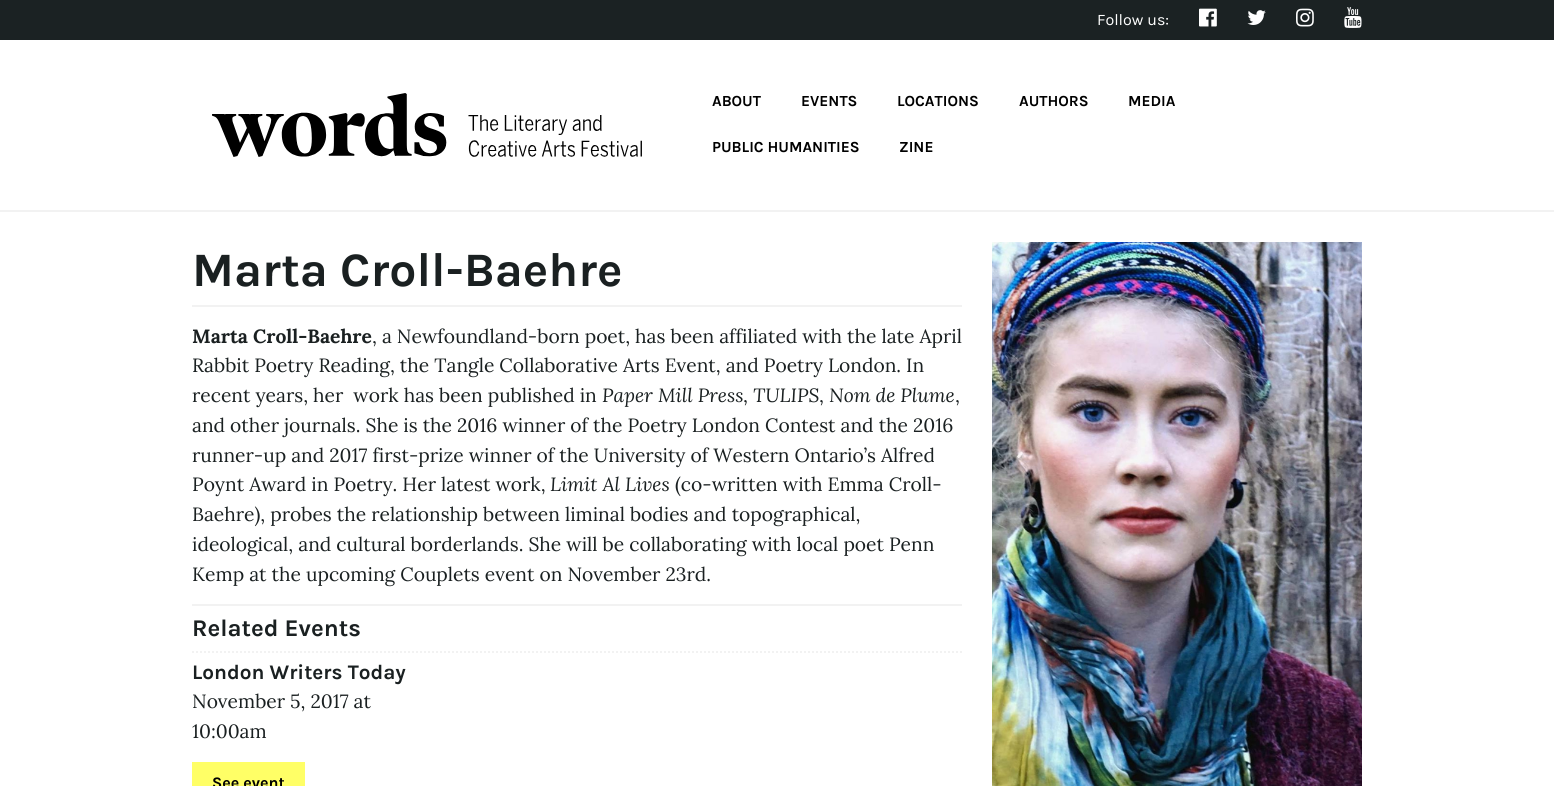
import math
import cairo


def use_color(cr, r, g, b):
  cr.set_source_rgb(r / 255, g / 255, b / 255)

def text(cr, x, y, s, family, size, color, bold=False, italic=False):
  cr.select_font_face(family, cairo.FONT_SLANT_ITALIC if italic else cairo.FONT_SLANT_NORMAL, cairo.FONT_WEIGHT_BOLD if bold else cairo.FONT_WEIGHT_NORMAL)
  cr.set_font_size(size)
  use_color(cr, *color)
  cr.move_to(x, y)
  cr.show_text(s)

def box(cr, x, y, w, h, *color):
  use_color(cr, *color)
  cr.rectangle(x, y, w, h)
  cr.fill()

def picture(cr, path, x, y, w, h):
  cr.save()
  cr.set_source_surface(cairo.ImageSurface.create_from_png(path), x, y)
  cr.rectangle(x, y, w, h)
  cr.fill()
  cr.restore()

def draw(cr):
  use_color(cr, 255, 255, 255)
  cr.paint()
  box(cr, 0, 0, 1554, 40, 27, 34, 35)
  picture(cr, "img_01.png", 1199, 8, 18, 19)
  picture(cr, "img_02.png", 1247, 10, 19, 15)
  picture(cr, "img_03.png", 1296, 8, 18, 19)
  picture(cr, "img_04.png", 1344, 7, 18, 21)
  picture(cr, "img_05.png", 212, 93, 430, 64)
  box(cr, 0, 210, 1554, 2, 242, 242, 242)
  box(cr, 192, 305, 770, 2, 242, 242, 242)
  box(cr, 192, 604, 770, 2, 242, 242, 242)
  cr.new_path()
  cr.move_to(192, 652)
  cr.line_to(962, 652)
  cr.set_dash([2, 2])
  cr.stroke()
  box(cr, 192, 762, 113, 24, 255, 255, 102)
  picture(cr, "img_06.png", 992, 242, 370, 544)
  text(cr, 1097, 25, "Follow us:", "Karla", 16, (255, 255, 255))
  text(cr, 712, 106, "ABOUT", "Karla", 15.4, (0, 0, 0), bold=True)
  text(cr, 801, 106, "EVENTS", "Karla", 15.4, (0, 0, 0), bold=True)
  text(cr, 897, 106, "LOCATIONS", "Karla", 15.4, (0, 0, 0), bold=True)
  text(cr, 1019, 106, "AUTHORS", "Karla", 15.4, (0, 0, 0), bold=True)
  text(cr, 1128, 106, "MEDIA", "Karla", 15.4, (0, 0, 0), bold=True)
  text(cr, 712, 152, "PUBLIC HUMANITIES", "Karla", 15.4, (0, 0, 0), bold=True)
  text(cr, 899, 152, "ZINE", "Karla", 15.4, (0, 0, 0), bold=True)
  text(cr, 192, 286, "Marta Croll-Baehre", "Karla", 48, (26, 32, 33), bold=True)
  text(cr, 192, 343, "Marta Croll-Baehre", "Lora", 19.2, (26, 32, 33), bold=True)
  text(cr, 372, 343, ", a Newfoundland-born poet, has been affiliated with the late April", "Lora", 19.2, (26, 32, 33))
  text(cr, 192, 372, "Rabbit Poetry Reading, the Tangle Collaborative Arts Event, and Poetry London. In", "Lora", 19.2, (26, 32, 33))
  text(cr, 192, 402, "recent years, her  work has been published in", "Lora", 19.2, (26, 32, 33))
  text(cr, 602, 402, "Paper Mill Press", "Lora", 19.2, (26, 32, 33), italic=True)
  text(cr, 743, 402, ",", "Lora", 19.2, (26, 32, 33))
  text(cr, 753, 402, "TULIPS", "Lora", 19.2, (26, 32, 33), italic=True)
  text(cr, 819, 402, ",", "Lora", 19.2, (26, 32, 33))
  text(cr, 829, 402, "Nom de Plume", "Lora", 19.2, (26, 32, 33), italic=True)
  text(cr, 955, 402, ",", "Lora", 19.2, (26, 32, 33))
  text(cr, 192, 432, "and other journals. She is the 2016 winner of the Poetry London Contest and the 2016", "Lora", 19.2, (26, 32, 33))
  text(cr, 192, 462, "runner-up and 2017 first-prize winner of the University of Western Ontario’s Alfred", "Lora", 19.2, (26, 32, 33))
  text(cr, 192, 491, "Poynt Award in Poetry. Her latest work,", "Lora", 19.2, (26, 32, 33))
  text(cr, 550, 491, "Limit Al Lives", "Lora", 19.2, (26, 32, 33), italic=True)
  text(cr, 675, 491, "(co-written with Emma Croll-", "Lora", 19.2, (26, 32, 33))
  text(cr, 192, 521, "Baehre), probes the relationship between liminal bodies and topographical,", "Lora", 19.2, (26, 32, 33))
  text(cr, 192, 551, "ideological, and cultural borderlands. She will be collaborating with local poet Penn", "Lora", 19.2, (26, 32, 33))
  text(cr, 192, 581, "Kemp at the upcoming Couplets event on November 23rd.", "Lora", 19.2, (26, 32, 33))
  text(cr, 192, 636, "Related Events", "Karla", 24, (26, 32, 33), bold=True)
  text(cr, 192, 679, "London Writers Today", "Karla", 20.75, (26, 32, 33), bold=True)
  text(cr, 192, 708, "November 5, 2017 at", "Lora", 19.2, (26, 32, 33))
  text(cr, 192, 738, "10:00am", "Lora", 19.2, (26, 32, 33))
  text(cr, 212, 788, "See event", "Karla", 16, (0, 0, 0), bold=True)


surface = cairo.ImageSurface(cairo.FORMAT_RGB24, 1554, 786)
cr = cairo.Context(surface)
options = cairo.FontOptions()
options.set_hint_metrics(cairo.HINT_METRICS_OFF)
options.set_hint_style(cairo.HINT_STYLE_NONE)
cr.set_font_options(options)
cr.set_miter_limit(4)
draw(cr)
surface.write_to_png("out.png")
